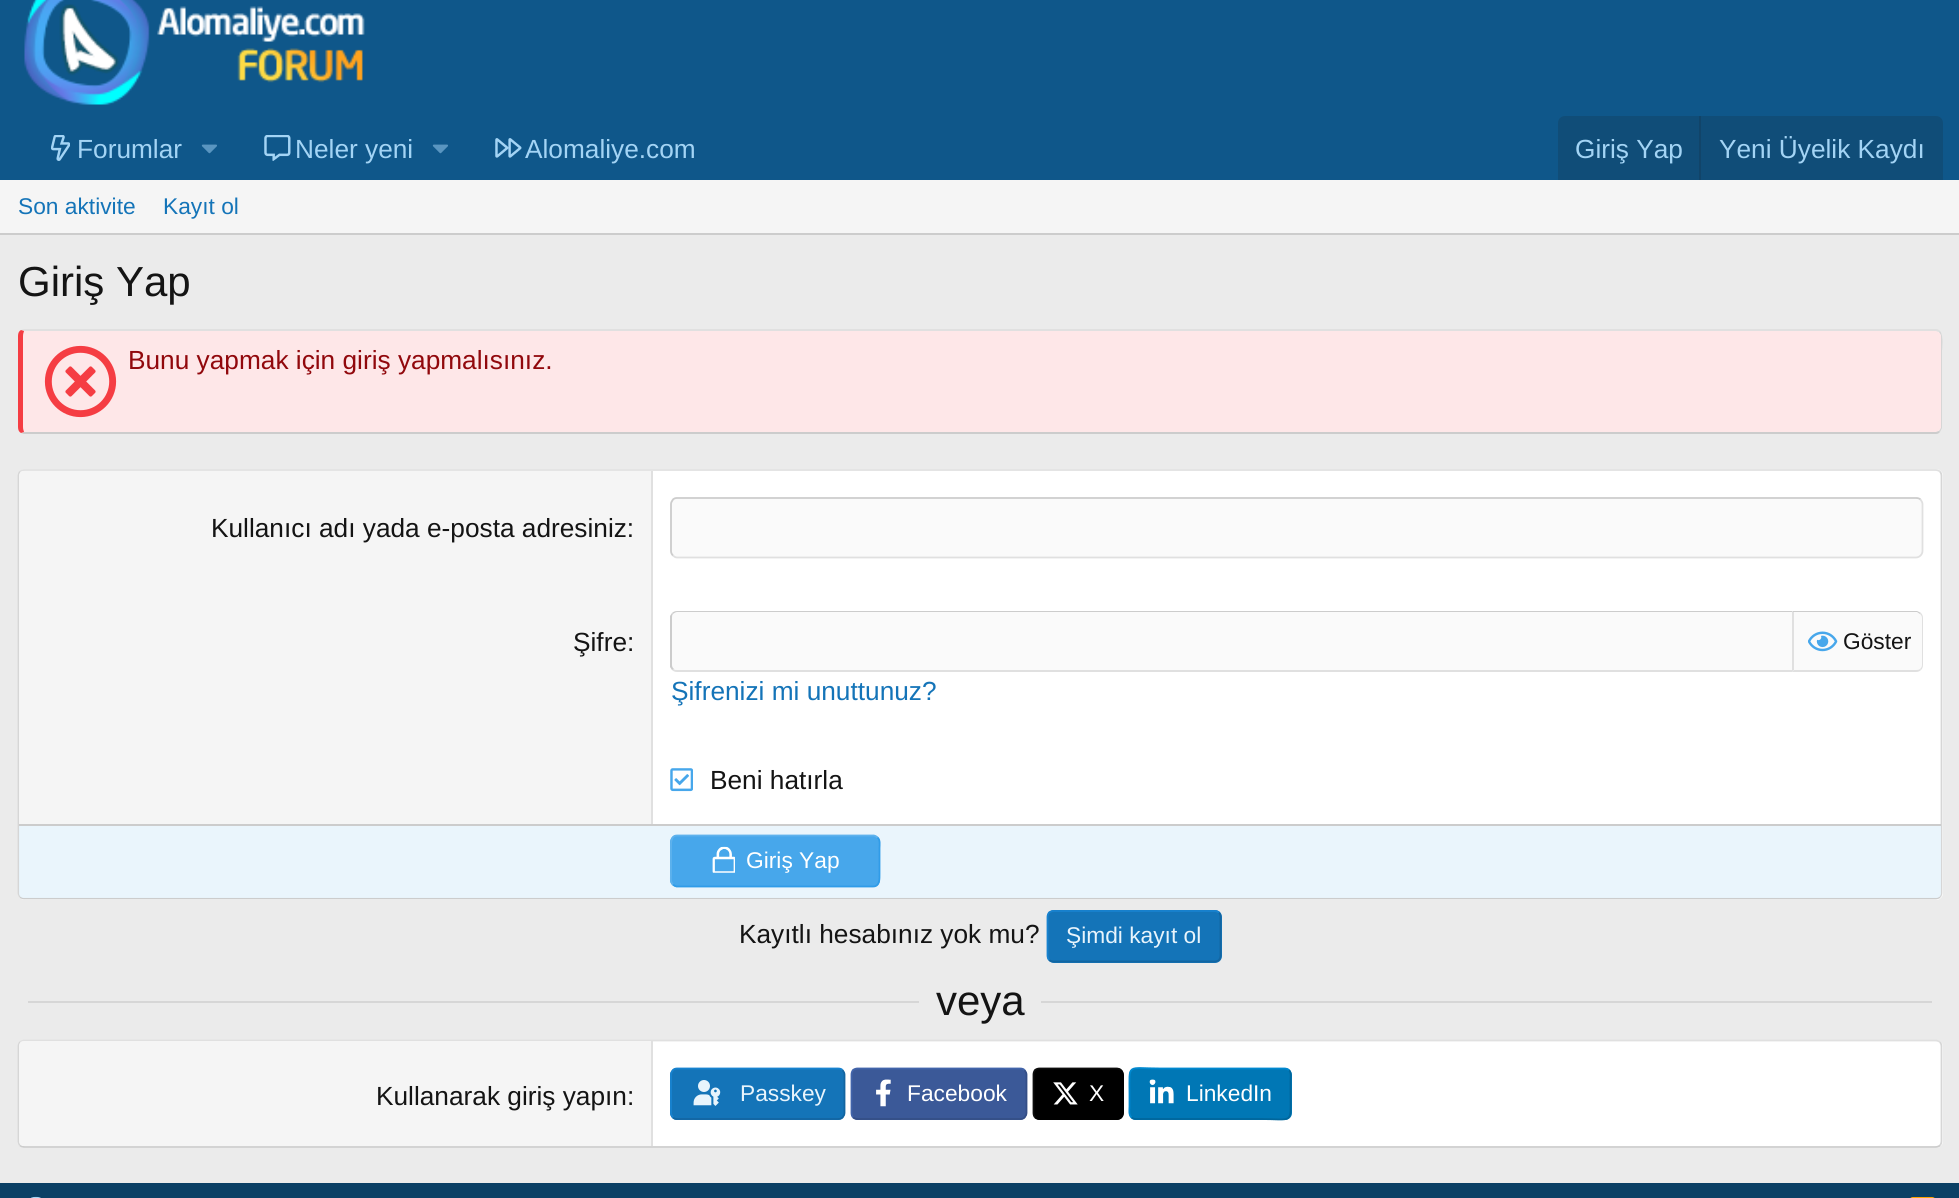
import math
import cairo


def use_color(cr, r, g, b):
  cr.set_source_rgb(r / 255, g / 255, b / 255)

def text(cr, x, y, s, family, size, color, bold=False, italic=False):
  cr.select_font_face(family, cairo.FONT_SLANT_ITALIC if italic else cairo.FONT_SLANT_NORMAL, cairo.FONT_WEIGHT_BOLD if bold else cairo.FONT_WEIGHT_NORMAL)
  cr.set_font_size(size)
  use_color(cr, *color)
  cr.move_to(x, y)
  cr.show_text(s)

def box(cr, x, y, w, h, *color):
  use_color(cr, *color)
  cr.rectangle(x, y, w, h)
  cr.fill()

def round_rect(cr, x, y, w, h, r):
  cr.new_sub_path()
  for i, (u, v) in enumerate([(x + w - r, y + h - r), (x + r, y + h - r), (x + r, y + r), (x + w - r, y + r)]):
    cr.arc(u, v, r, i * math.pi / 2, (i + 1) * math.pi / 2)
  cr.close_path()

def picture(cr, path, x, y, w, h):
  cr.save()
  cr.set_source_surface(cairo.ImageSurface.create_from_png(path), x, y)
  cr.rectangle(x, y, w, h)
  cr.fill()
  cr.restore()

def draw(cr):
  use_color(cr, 235, 235, 235)
  cr.paint()
  box(cr, 0, 0, 1959, 180, 15, 87, 138)
  picture(cr, "img_01.png", 24, 0, 341, 105)
  picture(cr, "img_02.png", 51, 135, 19, 26)
  picture(cr, "img_03.png", 201, 144, 16, 10)
  picture(cr, "img_04.png", 264, 135, 27, 26)
  picture(cr, "img_03.png", 432, 144, 16, 10)
  picture(cr, "img_05.png", 495, 138, 27, 20)
  use_color(cr, 16, 77, 120)
  cr.new_path()
  cr.move_to(1565, 116)
  cr.line_to(1936, 116)
  cr.curve_to(1940, 116, 1943, 119, 1943, 123)
  cr.line_to(1943, 180)
  cr.line_to(1558, 180)
  cr.line_to(1558, 123)
  cr.curve_to(1558, 119, 1561, 116, 1565, 116)
  cr.close_path()
  cr.fill()
  box(cr, 1699, 116, 2, 64, 17, 68, 105)
  box(cr, 0, 180, 1959, 53, 245, 245, 245)
  box(cr, 0, 233, 1959, 2, 204, 204, 204)
  use_color(cr, 254, 231, 232)
  cr.new_path()
  cr.move_to(24, 331)
  cr.line_to(1936, 331)
  cr.curve_to(1938, 331, 1941, 333, 1941, 336)
  cr.line_to(1941, 427)
  cr.curve_to(1941, 430, 1938, 432, 1936, 432)
  cr.line_to(24, 432)
  cr.curve_to(24, 432, 23, 430, 23, 427)
  cr.line_to(23, 336)
  cr.curve_to(23, 333, 24, 331, 24, 331)
  cr.close_path()
  cr.fill()
  use_color(cr, 224, 224, 224)
  cr.new_path()
  cr.move_to(24, 329)
  cr.line_to(21, 330)
  cr.line_to(24, 331)
  cr.line_to(1936, 331)
  cr.line_to(1939, 332)
  cr.line_to(1940, 331)
  cr.curve_to(1939, 330, 1938, 329, 1936, 329)
  cr.close_path()
  cr.fill()
  use_color(cr, 214, 214, 214)
  cr.new_path()
  cr.move_to(1940, 331)
  cr.curve_to(1944, 336, 1942, 349, 1942, 351)
  cr.line_to(1942, 428)
  cr.line_to(1940, 432)
  cr.line_to(1939, 431)
  cr.line_to(1941, 428)
  cr.line_to(1941, 335)
  cr.line_to(1939, 332)
  cr.close_path()
  cr.fill()
  use_color(cr, 204, 204, 204)
  cr.new_path()
  cr.move_to(24, 434)
  cr.line_to(1936, 434)
  cr.curve_to(1938, 434, 1939, 433, 1940, 432)
  cr.line_to(1939, 431)
  cr.line_to(1936, 432)
  cr.line_to(24, 432)
  cr.line_to(21, 433)
  cr.close_path()
  cr.fill()
  use_color(cr, 245, 61, 67)
  cr.new_path()
  cr.move_to(21, 330)
  cr.curve_to(19, 331, 18, 333, 18, 336)
  cr.line_to(18, 427)
  cr.curve_to(18, 430, 19, 432, 21, 433)
  cr.line_to(24, 432)
  cr.curve_to(24, 431, 23, 430, 23, 427)
  cr.line_to(23, 336)
  cr.curve_to(23, 333, 24, 332, 24, 331)
  cr.close_path()
  cr.fill()
  picture(cr, "img_06.png", 44, 345, 73, 73)
  use_color(cr, 255, 255, 255)
  round_rect(cr, 18, 469, 1925, 431, 7)
  cr.fill()
  cr.new_path()
  cr.move_to(20, 471.5)
  cr.curve_to(21.5, 470.5, 23, 470, 24.5, 470)
  cr.line_to(1935.5, 470)
  cr.curve_to(1937, 470, 1938.5, 470.5, 1940, 471.5)
  use_color(cr, 224, 224, 224)
  cr.set_line_width(1.8)
  cr.stroke()
  cr.new_path()
  cr.move_to(1940, 471.5)
  cr.curve_to(1941, 473, 1941.5, 474.5, 1941.5, 476)
  cr.line_to(1941.5, 892.5)
  cr.curve_to(1941.5, 894, 1941, 895.5, 1940, 897)
  use_color(cr, 214, 214, 214)
  cr.stroke()
  cr.new_path()
  cr.move_to(1940, 897)
  cr.curve_to(1938.5, 898, 1937, 898.5, 1935.5, 898.5)
  cr.line_to(24.5, 898.5)
  cr.curve_to(23, 898.5, 21.5, 898, 20, 897)
  use_color(cr, 204, 204, 204)
  cr.stroke()
  cr.new_path()
  cr.move_to(20, 897)
  cr.curve_to(19, 895.5, 18.5, 894, 18.5, 892.5)
  cr.line_to(18.5, 476)
  cr.curve_to(18.5, 474.5, 19, 473, 20, 471.5)
  use_color(cr, 214, 214, 214)
  cr.stroke()
  use_color(cr, 245, 245, 245)
  cr.new_path()
  cr.move_to(24, 471)
  cr.line_to(653, 471)
  cr.line_to(653, 585)
  cr.line_to(19, 585)
  cr.line_to(19, 476)
  cr.curve_to(19, 473, 21, 471, 24, 471)
  cr.close_path()
  cr.fill()
  box(cr, 651, 471, 2, 353, 224, 224, 224)
  use_color(cr, 250, 250, 250)
  round_rect(cr, 670, 497, 1253, 61, 7)
  cr.fill()
  cr.new_path()
  cr.move_to(1920.5, 499.5)
  cr.curve_to(1921.5, 501, 1922.5, 502.5, 1922.5, 504)
  cr.line_to(1922.5, 551)
  cr.curve_to(1922.5, 553, 1921.5, 554.5, 1920.5, 555.5)
  cr.curve_to(1919.5, 556.5, 1918, 557.5, 1916, 557.5)
  cr.line_to(677, 557.5)
  cr.curve_to(675.5, 557.5, 674, 556.5, 673, 555.5)
  use_color(cr, 224, 224, 224)
  cr.stroke()
  cr.new_path()
  cr.move_to(673, 555.5)
  cr.curve_to(672, 554.5, 671, 553, 671, 551)
  cr.line_to(671, 504)
  cr.curve_to(671, 502.5, 672, 501, 673, 499.5)
  cr.curve_to(674, 498.5, 675.5, 498, 677, 498)
  cr.line_to(1916, 498)
  cr.curve_to(1918, 498, 1919.5, 498.5, 1920.5, 499.5)
  use_color(cr, 204, 204, 204)
  cr.stroke()
  box(cr, 19, 585, 632, 239, 245, 245, 245)
  use_color(cr, 250, 250, 250)
  cr.new_path()
  cr.move_to(677, 611)
  cr.line_to(1792, 611)
  cr.line_to(1792, 672)
  cr.line_to(677, 672)
  cr.curve_to(673, 672, 670, 669, 670, 665)
  cr.line_to(670, 618)
  cr.curve_to(670, 614, 673, 611, 677, 611)
  cr.close_path()
  cr.fill()
  use_color(cr, 204, 204, 204)
  cr.new_path()
  cr.move_to(677, 611)
  cr.line_to(1792, 611)
  cr.line_to(1792, 612)
  cr.line_to(677, 612)
  cr.curve_to(676, 612, 674, 613, 673, 614)
  cr.line_to(672, 613)
  cr.curve_to(673, 612, 675, 611, 677, 611)
  cr.close_path()
  cr.fill()
  use_color(cr, 224, 224, 224)
  cr.new_path()
  cr.move_to(1792, 672)
  cr.line_to(1792, 670)
  cr.line_to(677, 670)
  cr.curve_to(676, 670, 674, 670, 674, 669)
  cr.line_to(672, 670)
  cr.curve_to(673, 671, 675, 672, 677, 672)
  cr.close_path()
  cr.fill()
  use_color(cr, 204, 204, 204)
  cr.new_path()
  cr.move_to(674, 669)
  cr.line_to(672, 670)
  cr.line_to(670, 667)
  cr.line_to(670, 616)
  cr.line_to(672, 613)
  cr.line_to(673, 614)
  cr.curve_to(672, 615, 672, 616, 672, 618)
  cr.line_to(672, 665)
  cr.curve_to(672, 667, 673, 668, 674, 669)
  cr.close_path()
  cr.fill()
  use_color(cr, 250, 250, 250)
  cr.new_path()
  cr.move_to(1792, 611)
  cr.line_to(1916, 611)
  cr.curve_to(1920, 611, 1923, 614, 1923, 618)
  cr.line_to(1923, 665)
  cr.curve_to(1923, 669, 1920, 672, 1916, 672)
  cr.line_to(1792, 672)
  cr.close_path()
  cr.fill()
  use_color(cr, 204, 204, 204)
  cr.new_path()
  cr.move_to(1794, 612)
  cr.line_to(1917, 612)
  cr.line_to(1920, 614)
  cr.line_to(1921, 613)
  cr.line_to(1917, 611)
  cr.line_to(1792, 611)
  cr.line_to(1794, 613)
  cr.close_path()
  cr.fill()
  use_color(cr, 224, 224, 224)
  cr.new_path()
  cr.move_to(1921, 613)
  cr.curve_to(1922, 614, 1923, 616, 1923, 618)
  cr.line_to(1923, 665)
  cr.curve_to(1923, 667, 1922, 669, 1921, 670)
  cr.line_to(1920, 669)
  cr.curve_to(1921, 668, 1922, 667, 1922, 665)
  cr.line_to(1922, 618)
  cr.curve_to(1922, 616, 1921, 615, 1920, 614)
  cr.close_path()
  cr.fill()
  cr.new_path()
  cr.move_to(1916, 672)
  cr.curve_to(1918, 672, 1920, 671, 1921, 670)
  cr.line_to(1920, 669)
  cr.curve_to(1919, 670, 1917, 670, 1916, 670)
  cr.line_to(1794, 670)
  cr.line_to(1792, 672)
  cr.close_path()
  cr.fill()
  cr.new_path()
  cr.move_to(1792, 672)
  cr.line_to(1794, 670)
  cr.line_to(1794, 613)
  cr.line_to(1792, 611)
  cr.close_path()
  cr.fill()
  picture(cr, "img_07.png", 1808, 631, 30, 21)
  picture(cr, "img_08.png", 670, 768, 23, 24)
  cr.set_source_rgba(0.91, 0.957, 0.988, 0.9)
  cr.new_path()
  cr.move_to(19, 824)
  cr.line_to(1941, 824)
  cr.line_to(1941, 893)
  cr.curve_to(1941, 896, 1939, 898, 1936, 898)
  cr.line_to(24, 898)
  cr.curve_to(21, 898, 19, 896, 19, 893)
  cr.close_path()
  cr.fill()
  box(cr, 19, 824, 1922, 2, 204, 204, 204)
  use_color(cr, 71, 167, 235)
  round_rect(cr, 670, 835, 210, 52, 7)
  cr.fill()
  cr.new_path()
  cr.move_to(877.5, 837.5)
  cr.curve_to(880.5, 840, 879.5, 845, 879.5, 848)
  cr.line_to(879.5, 874)
  cr.curve_to(879.5, 878.5, 880, 886.5, 873, 886.5)
  cr.line_to(676.5, 886.5)
  cr.curve_to(675, 886, 674, 885.5, 673, 884.5)
  use_color(cr, 48, 156, 232)
  cr.stroke()
  cr.new_path()
  cr.move_to(673, 884.5)
  cr.curve_to(670, 882, 671, 877, 671, 874)
  cr.line_to(671, 848)
  cr.curve_to(671, 843.5, 670.5, 835.5, 677, 835.5)
  cr.line_to(874, 835.5)
  cr.curve_to(875.5, 836, 876.5, 836.5, 877.5, 837.5)
  use_color(cr, 94, 178, 237)
  cr.stroke()
  picture(cr, "img_09.png", 712, 846, 23, 27)
  use_color(cr, 20, 116, 184)
  round_rect(cr, 1047, 910, 175, 53, 7)
  cr.fill()
  cr.new_path()
  cr.move_to(1219, 912.5)
  cr.curve_to(1220, 914, 1220.5, 915.5, 1220.5, 917)
  cr.line_to(1220.5, 955.5)
  cr.curve_to(1220.5, 957, 1220, 958.5, 1219, 960)
  cr.curve_to(1217.5, 961, 1216, 961.5, 1214.5, 961.5)
  cr.line_to(1053.5, 961.5)
  cr.curve_to(1052, 961.5, 1050.5, 961, 1049, 960)
  use_color(cr, 18, 101, 161)
  cr.stroke()
  cr.new_path()
  cr.move_to(1049, 960)
  cr.curve_to(1048, 958.5, 1047.5, 957, 1047.5, 955.5)
  cr.line_to(1047.5, 917)
  cr.curve_to(1047.5, 915.5, 1048, 914, 1049, 912.5)
  cr.curve_to(1050.5, 911.5, 1052, 911, 1053.5, 911)
  cr.line_to(1214.5, 911)
  cr.curve_to(1216, 911, 1217.5, 911.5, 1219, 912.5)
  use_color(cr, 23, 130, 207)
  cr.stroke()
  box(cr, 28, 1001, 891, 2, 214, 214, 214)
  box(cr, 1041, 1001, 891, 2, 214, 214, 214)
  use_color(cr, 255, 255, 255)
  round_rect(cr, 18, 1040, 1925, 108, 7)
  cr.fill()
  cr.new_path()
  cr.move_to(20, 1042)
  cr.curve_to(21.5, 1041, 23, 1040.5, 24.5, 1040.5)
  cr.line_to(1935.5, 1040.5)
  cr.curve_to(1937, 1040.5, 1938.5, 1041, 1940, 1042)
  use_color(cr, 224, 224, 224)
  cr.stroke()
  cr.new_path()
  cr.move_to(1940, 1042)
  cr.curve_to(1941, 1043.5, 1941.5, 1045, 1941.5, 1046.5)
  cr.line_to(1941.5, 1141)
  cr.curve_to(1941.5, 1142.5, 1941, 1144, 1940, 1145.5)
  use_color(cr, 214, 214, 214)
  cr.stroke()
  cr.new_path()
  cr.move_to(1940, 1145.5)
  cr.curve_to(1938.5, 1146.5, 1937, 1147, 1935.5, 1147)
  cr.line_to(24.5, 1147)
  cr.curve_to(23, 1147, 21.5, 1146.5, 20, 1145.5)
  use_color(cr, 204, 204, 204)
  cr.stroke()
  cr.new_path()
  cr.move_to(20, 1145.5)
  cr.curve_to(19, 1144, 18.5, 1142.5, 18.5, 1141)
  cr.line_to(18.5, 1046.5)
  cr.curve_to(18.5, 1045, 19, 1043.5, 20, 1042)
  use_color(cr, 214, 214, 214)
  cr.stroke()
  use_color(cr, 245, 245, 245)
  cr.new_path()
  cr.move_to(24, 1041)
  cr.line_to(653, 1041)
  cr.line_to(653, 1146)
  cr.line_to(24, 1146)
  cr.curve_to(21, 1146, 19, 1144, 19, 1141)
  cr.line_to(19, 1046)
  cr.curve_to(19, 1043, 21, 1041, 24, 1041)
  cr.close_path()
  cr.fill()
  box(cr, 651, 1041, 2, 105, 224, 224, 224)
  use_color(cr, 20, 116, 184)
  round_rect(cr, 670, 1068, 175, 52, 7)
  cr.fill()
  cr.new_path()
  cr.move_to(842.5, 1070)
  cr.curve_to(843.5, 1071.5, 844.5, 1073, 844.5, 1074.5)
  cr.line_to(844.5, 1113)
  cr.curve_to(844.5, 1114.5, 843.5, 1116, 842.5, 1117.5)
  cr.curve_to(841.5, 1118.5, 840, 1119, 838, 1119)
  cr.line_to(677, 1119)
  cr.curve_to(675.5, 1119, 674, 1118.5, 673, 1117.5)
  use_color(cr, 18, 101, 161)
  cr.stroke()
  cr.new_path()
  cr.move_to(673, 1117.5)
  cr.curve_to(672, 1116, 671, 1114.5, 671, 1113)
  cr.line_to(671, 1074.5)
  cr.curve_to(671, 1073, 672, 1071.5, 673, 1070)
  cr.curve_to(674, 1069, 675.5, 1068.5, 677, 1068.5)
  cr.line_to(838, 1068.5)
  cr.curve_to(840, 1068.5, 841.5, 1069, 842.5, 1070)
  use_color(cr, 23, 130, 207)
  cr.stroke()
  picture(cr, "img_10.png", 693, 1080, 28, 26)
  use_color(cr, 59, 89, 152)
  round_rect(cr, 851, 1068, 176, 52, 7)
  cr.fill()
  cr.new_path()
  cr.move_to(1024.5, 1070)
  cr.curve_to(1025.5, 1071.5, 1026.5, 1073, 1026.5, 1074.5)
  cr.line_to(1026.5, 1113)
  cr.curve_to(1026.5, 1114.5, 1025.5, 1116, 1024.5, 1117.5)
  cr.curve_to(1023.5, 1118.5, 1022, 1119, 1020, 1119)
  cr.line_to(857.5, 1119)
  cr.curve_to(856, 1119, 854.5, 1118.5, 853, 1117.5)
  use_color(cr, 52, 78, 134)
  cr.stroke()
  cr.new_path()
  cr.move_to(853, 1117.5)
  cr.curve_to(852, 1116, 851.5, 1114.5, 851.5, 1113)
  cr.line_to(851.5, 1074.5)
  cr.curve_to(851.5, 1073, 852, 1071.5, 853, 1070)
  cr.curve_to(854.5, 1069, 856, 1068.5, 857.5, 1068.5)
  cr.line_to(1020, 1068.5)
  cr.curve_to(1022, 1068.5, 1023.5, 1069, 1024.5, 1070)
  use_color(cr, 66, 100, 170)
  cr.stroke()
  picture(cr, "img_11.png", 876, 1079, 15, 28)
  use_color(cr, 0, 0, 0)
  round_rect(cr, 1033, 1068, 91, 52, 7)
  cr.fill()
  cr.new_path()
  cr.move_to(1121, 1070)
  cr.curve_to(1122, 1071.5, 1122.5, 1073, 1122.5, 1074.5)
  cr.line_to(1122.5, 1113)
  cr.curve_to(1122.5, 1114.5, 1122, 1116, 1121, 1117.5)
  cr.curve_to(1119.5, 1118.5, 1118, 1119, 1116.5, 1119)
  cr.line_to(1039.5, 1119)
  cr.curve_to(1038, 1119, 1036.5, 1118.5, 1035, 1117.5)
  cr.stroke()
  cr.new_path()
  cr.move_to(1035, 1117.5)
  cr.curve_to(1034, 1116, 1033.5, 1114.5, 1033.5, 1113)
  cr.line_to(1033.5, 1074.5)
  cr.curve_to(1033.5, 1073, 1034, 1071.5, 1035, 1070)
  cr.curve_to(1036.5, 1069, 1038, 1068.5, 1039.5, 1068.5)
  cr.line_to(1116.5, 1068.5)
  cr.curve_to(1118, 1068.5, 1119.5, 1069, 1121, 1070)
  use_color(cr, 13, 13, 13)
  cr.stroke()
  picture(cr, "img_12.png", 1053, 1082, 25, 23)
  use_color(cr, 0, 119, 181)
  round_rect(cr, 1129, 1068, 163, 52, 7)
  cr.fill()
  cr.new_path()
  cr.move_to(1289, 1070)
  cr.curve_to(1291.5, 1073, 1290.5, 1077.5, 1290.5, 1081)
  cr.line_to(1290.5, 1094)
  cr.curve_to(1290.5, 1125, 1294, 1119, 1259.5, 1119)
  cr.line_to(1136, 1119)
  cr.curve_to(1134, 1119, 1132.5, 1118.5, 1131.5, 1117.5)
  use_color(cr, 0, 102, 156)
  cr.stroke()
  cr.new_path()
  cr.move_to(1131.5, 1117.5)
  cr.curve_to(1128.5, 1114.5, 1129.5, 1110, 1129.5, 1106.5)
  cr.line_to(1129.5, 1094)
  cr.curve_to(1129.5, 1062.5, 1126, 1068.5, 1160.5, 1068.5)
  cr.line_to(1284.5, 1068.5)
  cr.curve_to(1286, 1068.5, 1287.5, 1069, 1289, 1070)
  use_color(cr, 0, 136, 207)
  cr.stroke()
  picture(cr, "img_13.png", 1149, 1079, 25, 25)
  box(cr, 0, 1183, 1959, 15, 11, 64, 101)
  picture(cr, "img_14.png", 31, 1196, 10, 2)
  use_color(cr, 255, 165, 0)
  round_rect(cr, 1909, 1197, 27, 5, 4)
  cr.fill()
  text(cr, 77, 158, "Forumlar", "Liberation Sans", 26.25, (163, 212, 245))
  text(cr, 295, 158, "Neler yeni", "Liberation Sans", 26.25, (163, 212, 245))
  text(cr, 525, 158, "Alomaliye.com", "Liberation Sans", 26.25, (163, 212, 245))
  text(cr, 1575, 158, "Giriş Yap", "Liberation Sans", 26.25, (163, 212, 245))
  text(cr, 1719, 158, "Yeni Üyelik Kaydı", "Liberation Sans", 26.25, (163, 212, 245))
  text(cr, 18, 214, "Son aktivite", "Liberation Sans", 22.75, (20, 116, 184))
  text(cr, 163, 214, "Kayıt ol", "Liberation Sans", 22.75, (20, 116, 184))
  text(cr, 18, 296, "Giriş Yap", "Liberation Sans", 42, (20, 20, 20))
  text(cr, 128, 369, "Bunu yapmak için giriş yapmalısınız.", "Liberation Sans", 26.25, (145, 8, 12))
  text(cr, 211, 537, "Kullanıcı adı yada e-posta adresiniz:", "Liberation Sans", 26.25, (20, 20, 20))
  text(cr, 573, 651, "Şifre:", "Liberation Sans", 26.25, (20, 20, 20))
  text(cr, 1843, 649, "Göster", "Liberation Sans", 22.75, (20, 20, 20))
  text(cr, 671, 700, "Şifrenizi mi unuttunuz?", "Liberation Sans", 26.25, (20, 116, 184))
  text(cr, 710, 789, "Beni hatırla", "Liberation Sans", 26.25, (20, 20, 20))
  text(cr, 746, 868, "Giriş Yap", "Liberation Sans", 22.75, (255, 255, 255))
  text(cr, 739, 943, "Kayıtlı hesabınız yok mu?", "Liberation Sans", 26.25, (20, 20, 20))
  text(cr, 1066, 943, "Şimdi kayıt ol", "Liberation Sans", 22.75, (232, 244, 252))
  text(cr, 936, 1015, "veya", "Liberation Sans", 42, (20, 20, 20))
  text(cr, 376, 1105, "Kullanarak giriş yapın:", "Liberation Sans", 26.25, (20, 20, 20))
  text(cr, 740, 1101, "Passkey", "Liberation Sans", 22.75, (232, 244, 252))
  text(cr, 907, 1101, "Facebook", "Liberation Sans", 22.75, (255, 255, 255))
  text(cr, 1089, 1101, "X", "Liberation Sans", 22.75, (255, 255, 255))
  text(cr, 1186, 1101, "LinkedIn", "Liberation Sans", 22.75, (255, 255, 255))


surface = cairo.ImageSurface(cairo.FORMAT_RGB24, 1959, 1198)
cr = cairo.Context(surface)
options = cairo.FontOptions()
options.set_hint_metrics(cairo.HINT_METRICS_OFF)
options.set_hint_style(cairo.HINT_STYLE_NONE)
cr.set_font_options(options)
cr.set_miter_limit(4)
draw(cr)
surface.write_to_png("out.png")
